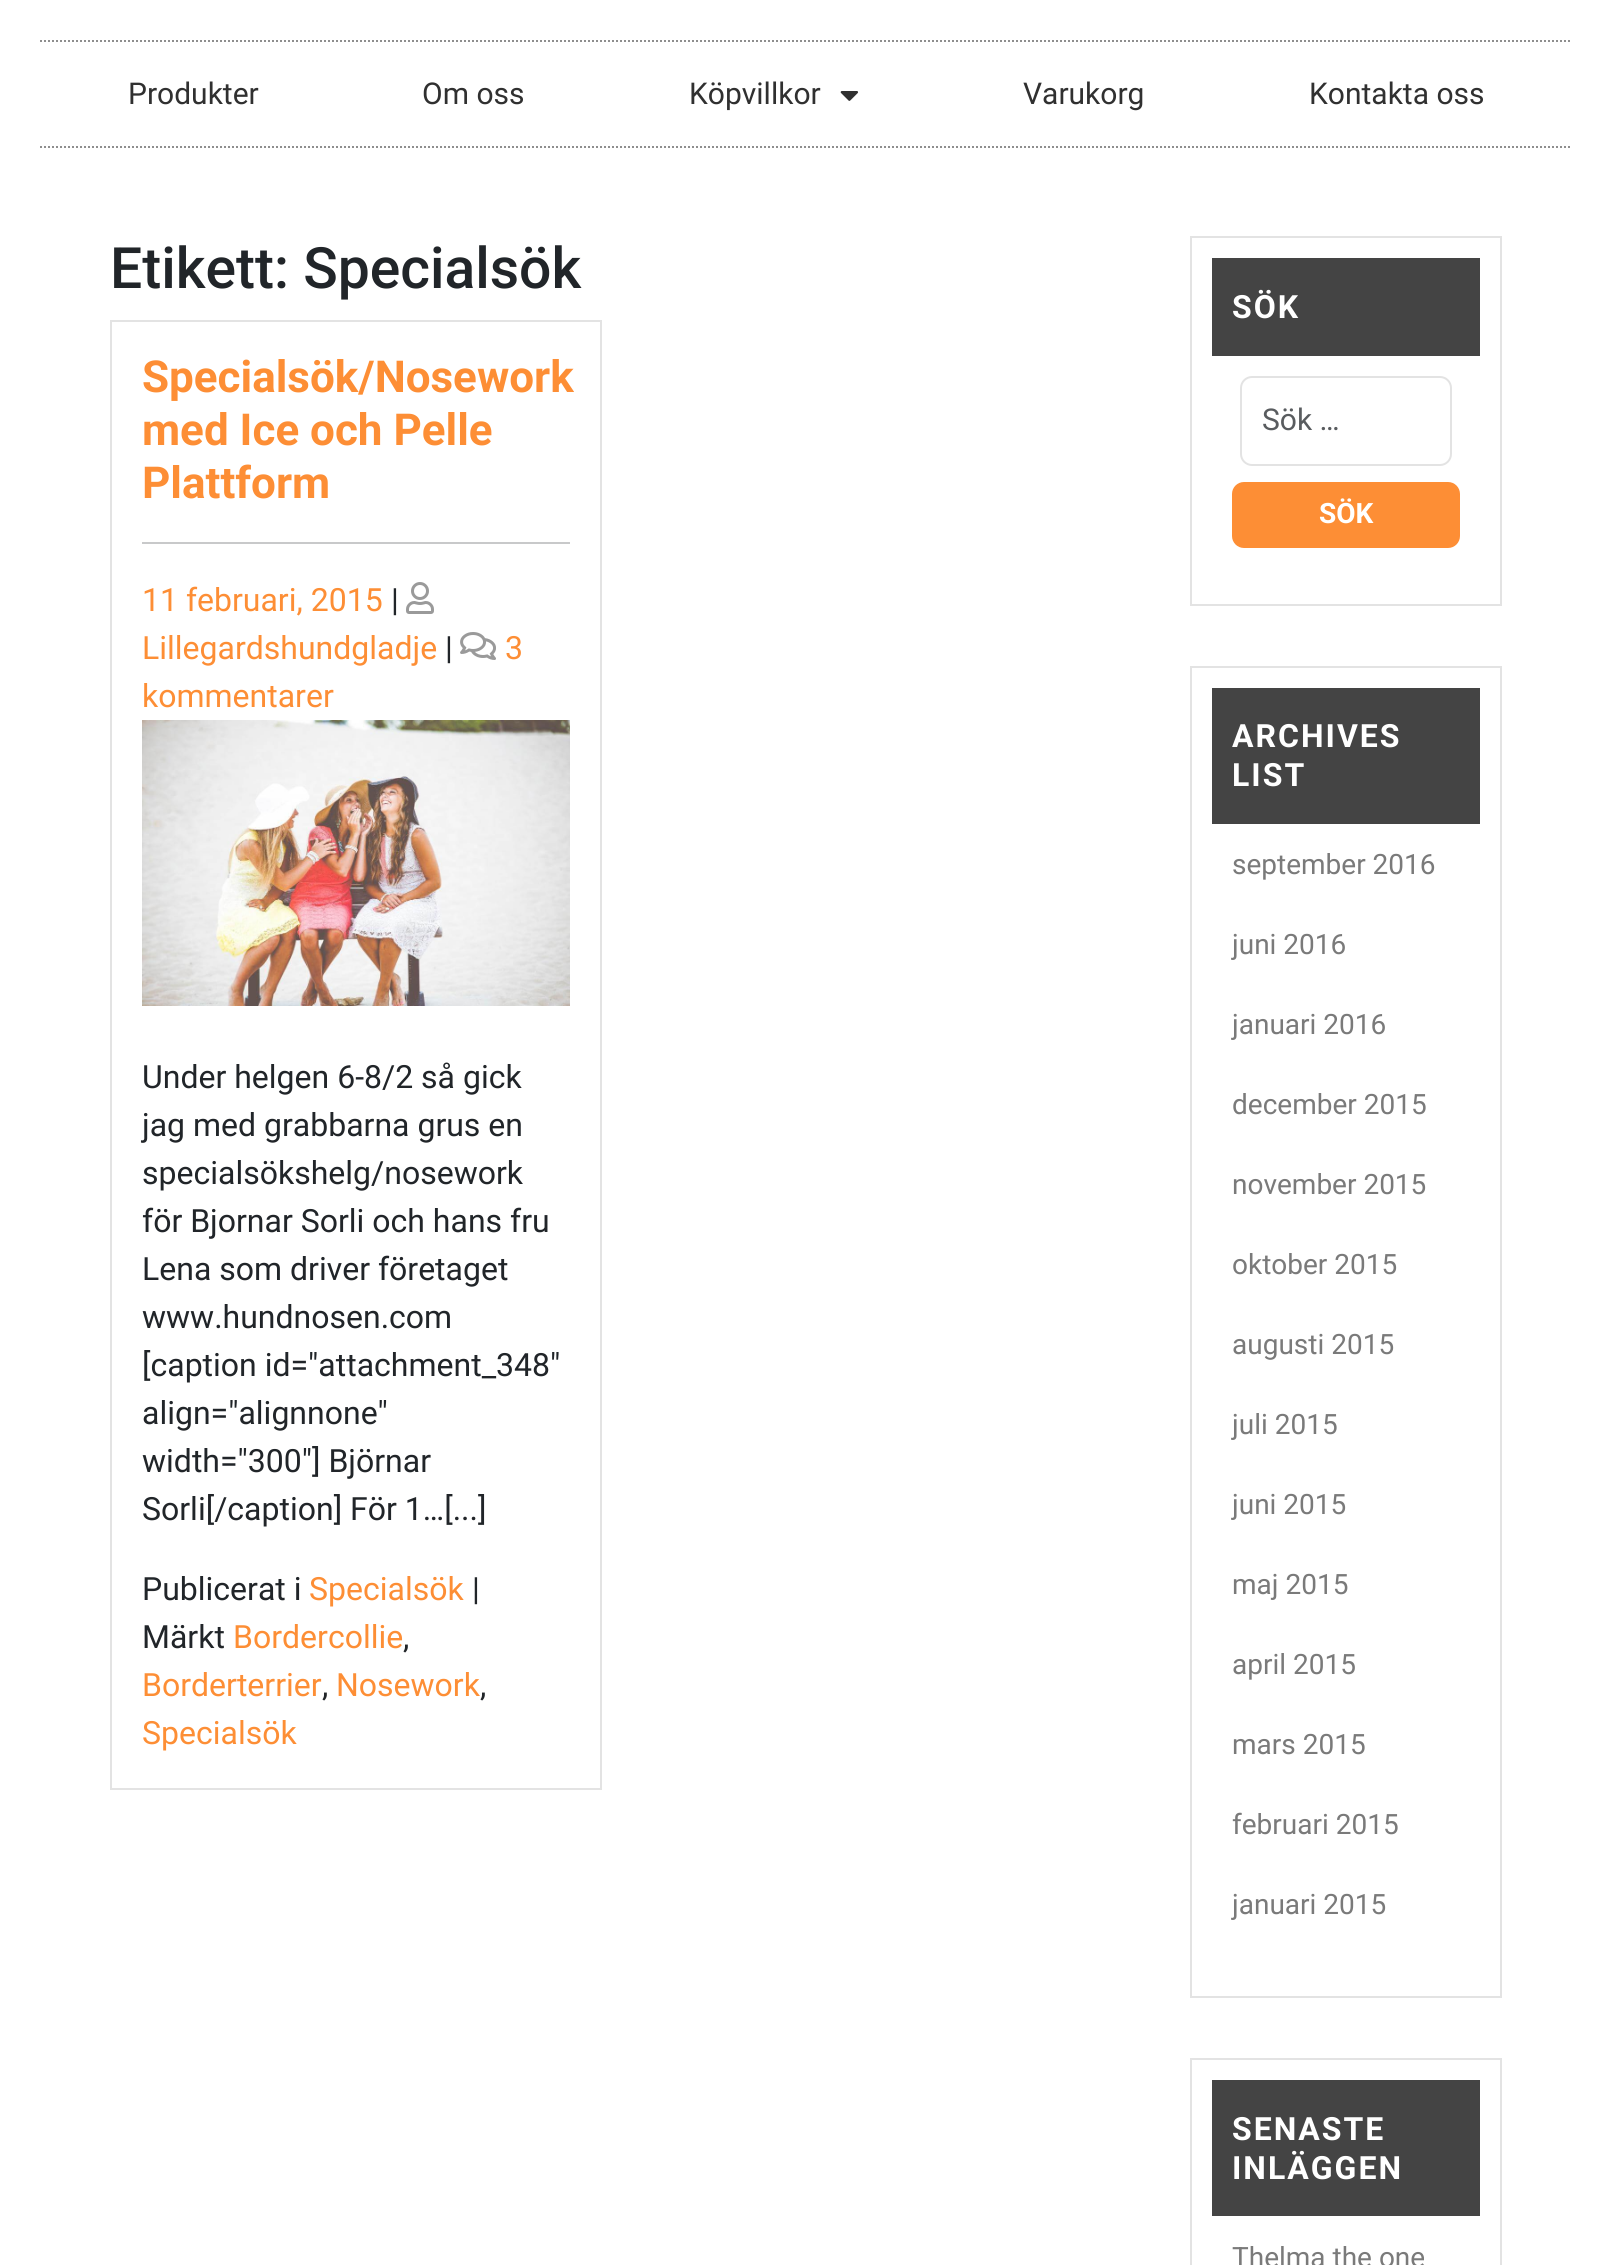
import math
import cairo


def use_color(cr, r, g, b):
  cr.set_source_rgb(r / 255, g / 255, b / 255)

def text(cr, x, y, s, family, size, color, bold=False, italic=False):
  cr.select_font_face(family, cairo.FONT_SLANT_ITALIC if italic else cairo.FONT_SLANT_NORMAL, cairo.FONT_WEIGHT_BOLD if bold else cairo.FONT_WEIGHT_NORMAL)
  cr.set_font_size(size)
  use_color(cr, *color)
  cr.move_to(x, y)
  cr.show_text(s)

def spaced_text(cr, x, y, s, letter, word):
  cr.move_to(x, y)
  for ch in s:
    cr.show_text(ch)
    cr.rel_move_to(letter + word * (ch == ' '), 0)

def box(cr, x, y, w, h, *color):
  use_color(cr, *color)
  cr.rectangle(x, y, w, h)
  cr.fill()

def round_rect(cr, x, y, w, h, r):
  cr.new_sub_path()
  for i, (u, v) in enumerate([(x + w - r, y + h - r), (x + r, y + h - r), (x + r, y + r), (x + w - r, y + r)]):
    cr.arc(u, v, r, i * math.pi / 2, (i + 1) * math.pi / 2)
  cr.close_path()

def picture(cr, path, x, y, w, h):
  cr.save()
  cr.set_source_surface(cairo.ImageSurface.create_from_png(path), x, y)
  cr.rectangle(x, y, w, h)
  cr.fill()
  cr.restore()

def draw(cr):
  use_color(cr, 255, 255, 255)
  cr.paint()
  cr.new_path()
  cr.move_to(40, 41)
  cr.line_to(1572, 41)
  use_color(cr, 142, 142, 142)
  cr.set_dash([2, 2])
  cr.stroke()
  cr.new_path()
  cr.move_to(40, 147)
  cr.line_to(1572, 147)
  cr.stroke()
  picture(cr, "img_01.png", 840, 91, 19, 10)
  cr.rectangle(111, 321, 490, 1468)
  use_color(cr, 227, 227, 227)
  cr.set_dash([])
  cr.stroke()
  box(cr, 142, 542, 428, 2, 200, 201, 202)
  picture(cr, "img_02.png", 406, 582, 28, 32)
  picture(cr, "img_03.png", 460, 632, 36, 28)
  picture(cr, "img_04.png", 142, 720, 428, 286)
  cr.rectangle(1191, 237, 310, 368)
  use_color(cr, 227, 227, 227)
  cr.stroke()
  box(cr, 1212, 258, 268, 98, 68, 68, 68)
  round_rect(cr, 1241, 377, 210, 88, 11)
  use_color(cr, 227, 227, 227)
  cr.stroke()
  use_color(cr, 253, 142, 53)
  round_rect(cr, 1232, 482, 228, 66, 12)
  cr.fill()
  cr.rectangle(1191, 667, 310, 1330)
  use_color(cr, 227, 227, 227)
  cr.stroke()
  box(cr, 1212, 688, 268, 136, 68, 68, 68)
  cr.rectangle(1191, 2059, 310, 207)
  use_color(cr, 227, 227, 227)
  cr.stroke()
  box(cr, 1212, 2080, 268, 136, 68, 68, 68)
  text(cr, 128, 104, "Produkter", "Roboto", 30, (48, 48, 48))
  text(cr, 422, 104, "Om oss", "Roboto", 30, (48, 48, 48))
  text(cr, 689, 104, "Köpvillkor", "Roboto", 30, (48, 48, 48))
  text(cr, 1023, 104, "Varukorg", "Roboto", 30, (48, 48, 48))
  text(cr, 1309, 104, "Kontakta oss", "Roboto", 30, (48, 48, 48))
  text(cr, 110, 288, "Etikett: Specialsök", "Roboto Medium", 57, (33, 37, 41))
  text(cr, 142, 392, "Specialsök/Nosework", "Roboto", 44, (253, 142, 53), bold=True)
  text(cr, 142, 445, "med Ice och Pelle", "Roboto", 44, (253, 142, 53), bold=True)
  text(cr, 142, 498, "Plattform", "Roboto", 44, (253, 142, 53), bold=True)
  text(cr, 142, 611, "11 februari, 2015", "Roboto", 32, (253, 142, 53))
  text(cr, 391, 611, "|", "Roboto", 32, (33, 37, 41))
  text(cr, 142, 659, "Lillegardshundgladje", "Roboto", 32, (253, 142, 53))
  text(cr, 505, 659, "3", "Roboto", 32, (253, 142, 53))
  text(cr, 142, 707, "kommentarer", "Roboto", 32, (253, 142, 53))
  text(cr, 445, 659, "|", "Roboto", 32, (33, 37, 41))
  text(cr, 142, 1088, "Under helgen 6-8/2 så gick", "Roboto", 32, (33, 37, 41))
  text(cr, 142, 1136, "jag med grabbarna grus en", "Roboto", 32, (33, 37, 41))
  text(cr, 142, 1184, "specialsökshelg/nosework", "Roboto", 32, (33, 37, 41))
  text(cr, 142, 1232, "för Bjornar Sorli och hans fru", "Roboto", 32, (33, 37, 41))
  text(cr, 142, 1280, "Lena som driver företaget", "Roboto", 32, (33, 37, 41))
  text(cr, 142, 1328, "www.hundnosen.com", "Roboto", 32, (33, 37, 41))
  text(cr, 142, 1376, "[caption id=\"attachment_348\"", "Roboto", 32, (33, 37, 41))
  text(cr, 142, 1424, "align=\"alignnone\"", "Roboto", 32, (33, 37, 41))
  text(cr, 142, 1472, "width=\"300\"] Björnar", "Roboto", 32, (33, 37, 41))
  text(cr, 142, 1520, "Sorli[/caption] För 1…[...]", "Roboto", 32, (33, 37, 41))
  text(cr, 142, 1600, "Publicerat i", "Roboto", 32, (33, 37, 41))
  text(cr, 309, 1600, "Specialsök", "Roboto", 32, (253, 142, 53))
  text(cr, 472, 1600, "|", "Roboto", 32, (33, 37, 41))
  text(cr, 142, 1648, "Märkt", "Roboto", 32, (33, 37, 41))
  text(cr, 233, 1648, "Bordercollie", "Roboto", 32, (253, 142, 53))
  text(cr, 403, 1648, ",", "Roboto", 32, (33, 37, 41))
  text(cr, 142, 1696, "Borderterrier", "Roboto", 32, (253, 142, 53))
  text(cr, 322, 1696, ",", "Roboto", 32, (33, 37, 41))
  text(cr, 336, 1696, "Nosework", "Roboto", 32, (253, 142, 53))
  text(cr, 480, 1696, ",", "Roboto", 32, (33, 37, 41))
  text(cr, 142, 1744, "Specialsök", "Roboto", 32, (253, 142, 53))
  cr.select_font_face("Roboto", cairo.FONT_SLANT_NORMAL, cairo.FONT_WEIGHT_BOLD)
  use_color(cr, 255, 255, 255)
  spaced_text(cr, 1232, 318, "SÖK", 2, 0)
  text(cr, 1262, 430, "Sök …", "Roboto", 30, (89, 92, 95))
  text(cr, 1319, 523, "SÖK", "Roboto", 28, (255, 255, 255), bold=True)
  cr.set_font_size(32)
  spaced_text(cr, 1232, 747, "ARCHIVES", 2, 0)
  spaced_text(cr, 1232, 786, "LIST", 2, 0)
  text(cr, 1232, 874, "september 2016", "Roboto", 28, (122, 122, 122))
  text(cr, 1232, 954, "juni 2016", "Roboto", 28, (122, 122, 122))
  text(cr, 1232, 1034, "januari 2016", "Roboto", 28, (122, 122, 122))
  text(cr, 1232, 1114, "december 2015", "Roboto", 28, (122, 122, 122))
  text(cr, 1232, 1194, "november 2015", "Roboto", 28, (122, 122, 122))
  text(cr, 1232, 1274, "oktober 2015", "Roboto", 28, (122, 122, 122))
  text(cr, 1232, 1354, "augusti 2015", "Roboto", 28, (122, 122, 122))
  text(cr, 1232, 1434, "juli 2015", "Roboto", 28, (122, 122, 122))
  text(cr, 1232, 1514, "juni 2015", "Roboto", 28, (122, 122, 122))
  text(cr, 1232, 1594, "maj 2015", "Roboto", 28, (122, 122, 122))
  text(cr, 1232, 1674, "april 2015", "Roboto", 28, (122, 122, 122))
  text(cr, 1232, 1754, "mars 2015", "Roboto", 28, (122, 122, 122))
  text(cr, 1232, 1834, "februari 2015", "Roboto", 28, (122, 122, 122))
  text(cr, 1232, 1914, "januari 2015", "Roboto", 28, (122, 122, 122))
  cr.select_font_face("Roboto", cairo.FONT_SLANT_NORMAL, cairo.FONT_WEIGHT_BOLD)
  cr.set_font_size(32)
  use_color(cr, 255, 255, 255)
  spaced_text(cr, 1232, 2140, "SENASTE", 2, 0)
  spaced_text(cr, 1232, 2179, "INLÄGGEN", 2, 0)
  text(cr, 1232, 2267, "Thelma the one", "Roboto", 28, (122, 122, 122))


surface = cairo.ImageSurface(cairo.FORMAT_RGB24, 1612, 2265)
cr = cairo.Context(surface)
options = cairo.FontOptions()
options.set_hint_metrics(cairo.HINT_METRICS_OFF)
options.set_hint_style(cairo.HINT_STYLE_NONE)
cr.set_font_options(options)
cr.set_miter_limit(4)
draw(cr)
surface.write_to_png("out.png")
